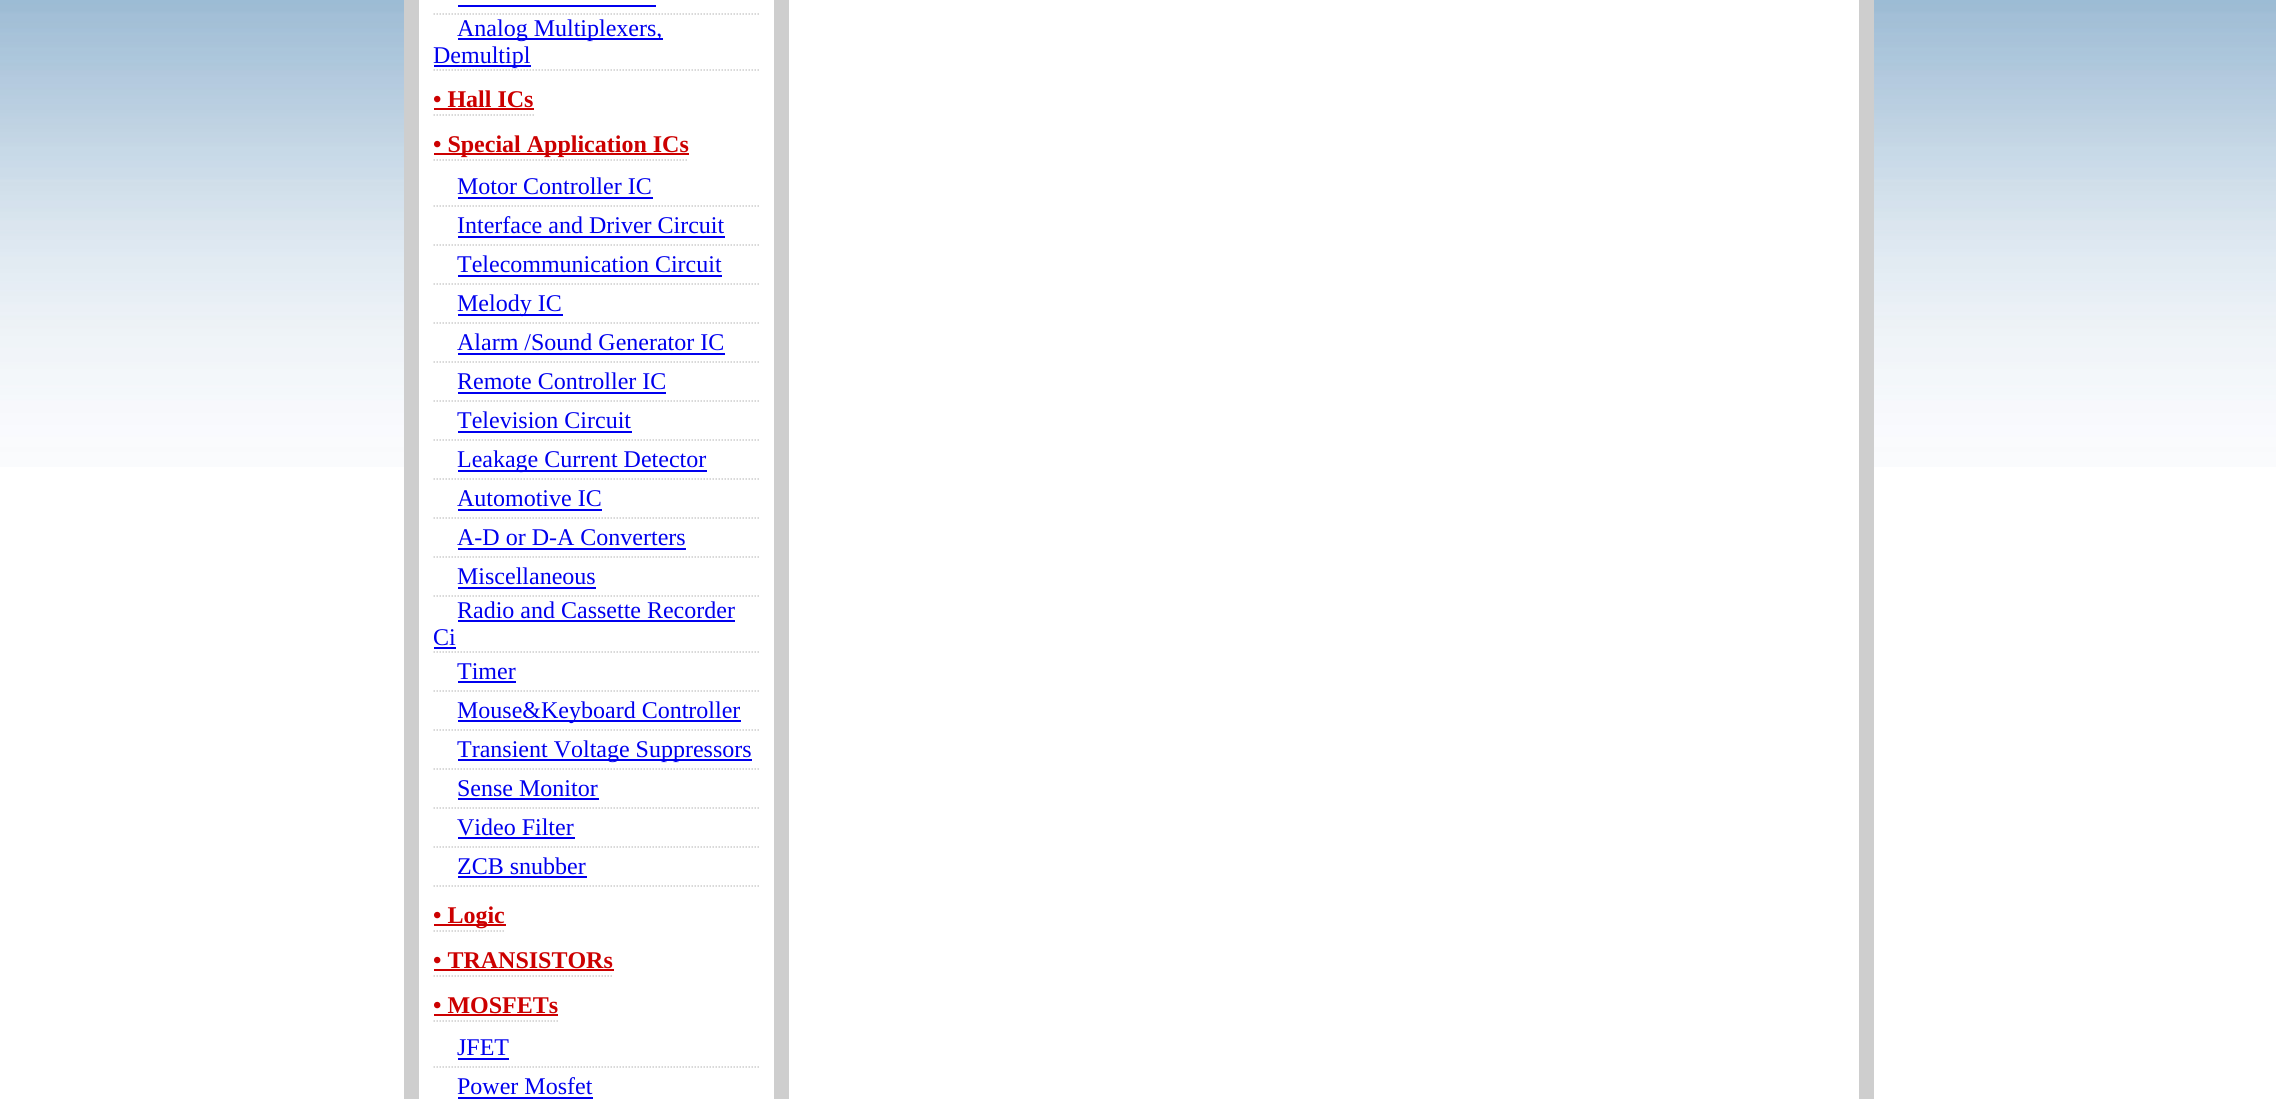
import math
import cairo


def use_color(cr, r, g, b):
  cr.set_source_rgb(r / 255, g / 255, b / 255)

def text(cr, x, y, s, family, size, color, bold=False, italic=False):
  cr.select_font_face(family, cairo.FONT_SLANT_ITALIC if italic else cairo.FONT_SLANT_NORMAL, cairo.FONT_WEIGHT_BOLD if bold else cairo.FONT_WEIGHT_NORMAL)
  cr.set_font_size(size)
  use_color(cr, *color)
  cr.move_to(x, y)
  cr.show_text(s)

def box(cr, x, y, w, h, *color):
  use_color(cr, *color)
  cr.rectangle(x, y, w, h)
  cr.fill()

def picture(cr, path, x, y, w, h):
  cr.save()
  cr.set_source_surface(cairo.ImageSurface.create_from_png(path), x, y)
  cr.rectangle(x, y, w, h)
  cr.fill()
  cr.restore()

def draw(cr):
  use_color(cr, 255, 255, 255)
  cr.paint()
  picture(cr, "img_01.png", 0, 0, 2276, 467)
  box(cr, 404, 0, 1470, 1099, 206, 206, 206)
  box(cr, 419, 0, 355, 1099, 255, 255, 255)
  cr.new_path()
  cr.move_to(433.5, 14)
  cr.line_to(759, 14)
  use_color(cr, 204, 204, 204)
  cr.set_line_width(1.5)
  cr.set_dash([1.5, 1.5])
  cr.stroke()
  box(cr, 458, 5, 198, 2, 0, 0, 238)
  cr.new_path()
  cr.move_to(433.5, 70)
  cr.line_to(759, 70)
  use_color(cr, 204, 204, 204)
  cr.stroke()
  box(cr, 458, 38, 205, 2, 0, 0, 238)
  box(cr, 434, 65, 97, 2, 0, 0, 238)
  cr.new_path()
  cr.move_to(433.5, 115)
  cr.line_to(534, 115)
  use_color(cr, 204, 204, 204)
  cr.stroke()
  box(cr, 434, 108, 100, 2, 204, 0, 0)
  cr.new_path()
  cr.move_to(433.5, 160)
  cr.line_to(688.5, 160)
  use_color(cr, 204, 204, 204)
  cr.stroke()
  box(cr, 434, 153, 255, 2, 204, 0, 0)
  cr.new_path()
  cr.move_to(433.5, 206)
  cr.line_to(759, 206)
  use_color(cr, 204, 204, 204)
  cr.stroke()
  box(cr, 458, 197, 195, 2, 0, 0, 238)
  cr.new_path()
  cr.move_to(433.5, 245)
  cr.line_to(759, 245)
  use_color(cr, 204, 204, 204)
  cr.stroke()
  box(cr, 458, 236, 267, 2, 0, 0, 238)
  cr.new_path()
  cr.move_to(433.5, 284)
  cr.line_to(759, 284)
  use_color(cr, 204, 204, 204)
  cr.stroke()
  box(cr, 458, 275, 264, 2, 0, 0, 238)
  cr.new_path()
  cr.move_to(433.5, 323)
  cr.line_to(759, 323)
  use_color(cr, 204, 204, 204)
  cr.stroke()
  box(cr, 458, 314, 105, 2, 0, 0, 238)
  cr.new_path()
  cr.move_to(433.5, 362)
  cr.line_to(759, 362)
  use_color(cr, 204, 204, 204)
  cr.stroke()
  box(cr, 458, 353, 267, 2, 0, 0, 238)
  cr.new_path()
  cr.move_to(433.5, 401)
  cr.line_to(759, 401)
  use_color(cr, 204, 204, 204)
  cr.stroke()
  box(cr, 458, 392, 208, 2, 0, 0, 238)
  cr.new_path()
  cr.move_to(433.5, 440)
  cr.line_to(759, 440)
  use_color(cr, 204, 204, 204)
  cr.stroke()
  box(cr, 458, 431, 174, 2, 0, 0, 238)
  cr.new_path()
  cr.move_to(433.5, 479)
  cr.line_to(759, 479)
  use_color(cr, 204, 204, 204)
  cr.stroke()
  box(cr, 458, 470, 249, 2, 0, 0, 238)
  cr.new_path()
  cr.move_to(433.5, 518)
  cr.line_to(759, 518)
  use_color(cr, 204, 204, 204)
  cr.stroke()
  box(cr, 458, 509, 144, 2, 0, 0, 238)
  cr.new_path()
  cr.move_to(433.5, 557)
  cr.line_to(759, 557)
  use_color(cr, 204, 204, 204)
  cr.stroke()
  box(cr, 458, 548, 228, 2, 0, 0, 238)
  cr.new_path()
  cr.move_to(433.5, 596)
  cr.line_to(759, 596)
  use_color(cr, 204, 204, 204)
  cr.stroke()
  box(cr, 458, 587, 138, 2, 0, 0, 238)
  cr.new_path()
  cr.move_to(433.5, 652)
  cr.line_to(759, 652)
  use_color(cr, 204, 204, 204)
  cr.stroke()
  box(cr, 458, 620, 277, 2, 0, 0, 238)
  box(cr, 434, 647, 22, 2, 0, 0, 238)
  cr.new_path()
  cr.move_to(433.5, 691)
  cr.line_to(759, 691)
  use_color(cr, 204, 204, 204)
  cr.stroke()
  box(cr, 458, 681, 58, 2, 0, 0, 238)
  cr.new_path()
  cr.move_to(433.5, 730)
  cr.line_to(759, 730)
  use_color(cr, 204, 204, 204)
  cr.stroke()
  box(cr, 458, 720, 283, 2, 0, 0, 238)
  cr.new_path()
  cr.move_to(433.5, 769)
  cr.line_to(759, 769)
  use_color(cr, 204, 204, 204)
  cr.stroke()
  box(cr, 458, 759, 294, 2, 0, 0, 238)
  cr.new_path()
  cr.move_to(433.5, 808)
  cr.line_to(759, 808)
  use_color(cr, 204, 204, 204)
  cr.stroke()
  box(cr, 458, 798, 141, 2, 0, 0, 238)
  cr.new_path()
  cr.move_to(433.5, 847)
  cr.line_to(759, 847)
  use_color(cr, 204, 204, 204)
  cr.stroke()
  box(cr, 458, 837, 117, 2, 0, 0, 238)
  cr.new_path()
  cr.move_to(433.5, 886)
  cr.line_to(759, 886)
  use_color(cr, 204, 204, 204)
  cr.stroke()
  box(cr, 458, 876, 129, 2, 0, 0, 238)
  cr.new_path()
  cr.move_to(433.5, 931)
  cr.line_to(505.5, 931)
  use_color(cr, 204, 204, 204)
  cr.stroke()
  box(cr, 434, 924, 72, 2, 204, 0, 0)
  cr.new_path()
  cr.move_to(433.5, 976)
  cr.line_to(613.5, 976)
  use_color(cr, 204, 204, 204)
  cr.stroke()
  box(cr, 434, 969, 180, 2, 204, 0, 0)
  cr.new_path()
  cr.move_to(433.5, 1021)
  cr.line_to(558, 1021)
  use_color(cr, 204, 204, 204)
  cr.stroke()
  box(cr, 434, 1014, 124, 2, 204, 0, 0)
  cr.new_path()
  cr.move_to(433.5, 1067)
  cr.line_to(759, 1067)
  use_color(cr, 204, 204, 204)
  cr.stroke()
  box(cr, 458, 1058, 51, 2, 0, 0, 238)
  box(cr, 458, 1097, 135, 2, 0, 0, 238)
  box(cr, 789, 0, 1070, 1099, 255, 255, 255)
  text(cr, 457, 36, "Analog Multiplexers,", "Liberation Serif", 24, (0, 0, 238))
  text(cr, 433, 63, "Demultipl", "Liberation Serif", 24, (0, 0, 238))
  text(cr, 433, 107, "• Hall ICs", "Liberation Serif", 24, (204, 0, 0), bold=True)
  text(cr, 433, 152, "• Special Application ICs", "Liberation Serif", 24, (204, 0, 0), bold=True)
  text(cr, 457, 194, "Motor Controller IC", "Liberation Serif", 24, (0, 0, 238))
  text(cr, 457, 233, "Interface and Driver Circuit", "Liberation Serif", 24, (0, 0, 238))
  text(cr, 457, 272, "Telecommunication Circuit", "Liberation Serif", 24, (0, 0, 238))
  text(cr, 457, 311, "Melody IC", "Liberation Serif", 24, (0, 0, 238))
  text(cr, 457, 350, "Alarm /Sound Generator IC", "Liberation Serif", 24, (0, 0, 238))
  text(cr, 457, 389, "Remote Controller IC", "Liberation Serif", 24, (0, 0, 238))
  text(cr, 457, 428, "Television Circuit", "Liberation Serif", 24, (0, 0, 238))
  text(cr, 457, 467, "Leakage Current Detector", "Liberation Serif", 24, (0, 0, 238))
  text(cr, 457, 506, "Automotive IC", "Liberation Serif", 24, (0, 0, 238))
  text(cr, 457, 545, "A-D or D-A Converters", "Liberation Serif", 24, (0, 0, 238))
  text(cr, 457, 584, "Miscellaneous", "Liberation Serif", 24, (0, 0, 238))
  text(cr, 457, 618, "Radio and Cassette Recorder", "Liberation Serif", 24, (0, 0, 238))
  text(cr, 433, 645, "Ci", "Liberation Serif", 24, (0, 0, 238))
  text(cr, 457, 679, "Timer", "Liberation Serif", 24, (0, 0, 238))
  text(cr, 457, 718, "Mouse&Keyboard Controller", "Liberation Serif", 24, (0, 0, 238))
  text(cr, 457, 757, "Transient Voltage Suppressors", "Liberation Serif", 24, (0, 0, 238))
  text(cr, 457, 796, "Sense Monitor", "Liberation Serif", 24, (0, 0, 238))
  text(cr, 457, 835, "Video Filter", "Liberation Serif", 24, (0, 0, 238))
  text(cr, 457, 874, "ZCB snubber", "Liberation Serif", 24, (0, 0, 238))
  text(cr, 433, 923, "• Logic", "Liberation Serif", 24, (204, 0, 0), bold=True)
  text(cr, 433, 968, "• TRANSISTORs", "Liberation Serif", 24, (204, 0, 0), bold=True)
  text(cr, 433, 1013, "• MOSFETs", "Liberation Serif", 24, (204, 0, 0), bold=True)
  text(cr, 457, 1055, "JFET", "Liberation Serif", 24, (0, 0, 238))
  text(cr, 457, 1094, "Power Mosfet", "Liberation Serif", 24, (0, 0, 238))


surface = cairo.ImageSurface(cairo.FORMAT_RGB24, 2276, 1099)
cr = cairo.Context(surface)
options = cairo.FontOptions()
options.set_hint_metrics(cairo.HINT_METRICS_OFF)
options.set_hint_style(cairo.HINT_STYLE_NONE)
cr.set_font_options(options)
cr.set_miter_limit(4)
draw(cr)
surface.write_to_png("out.png")
